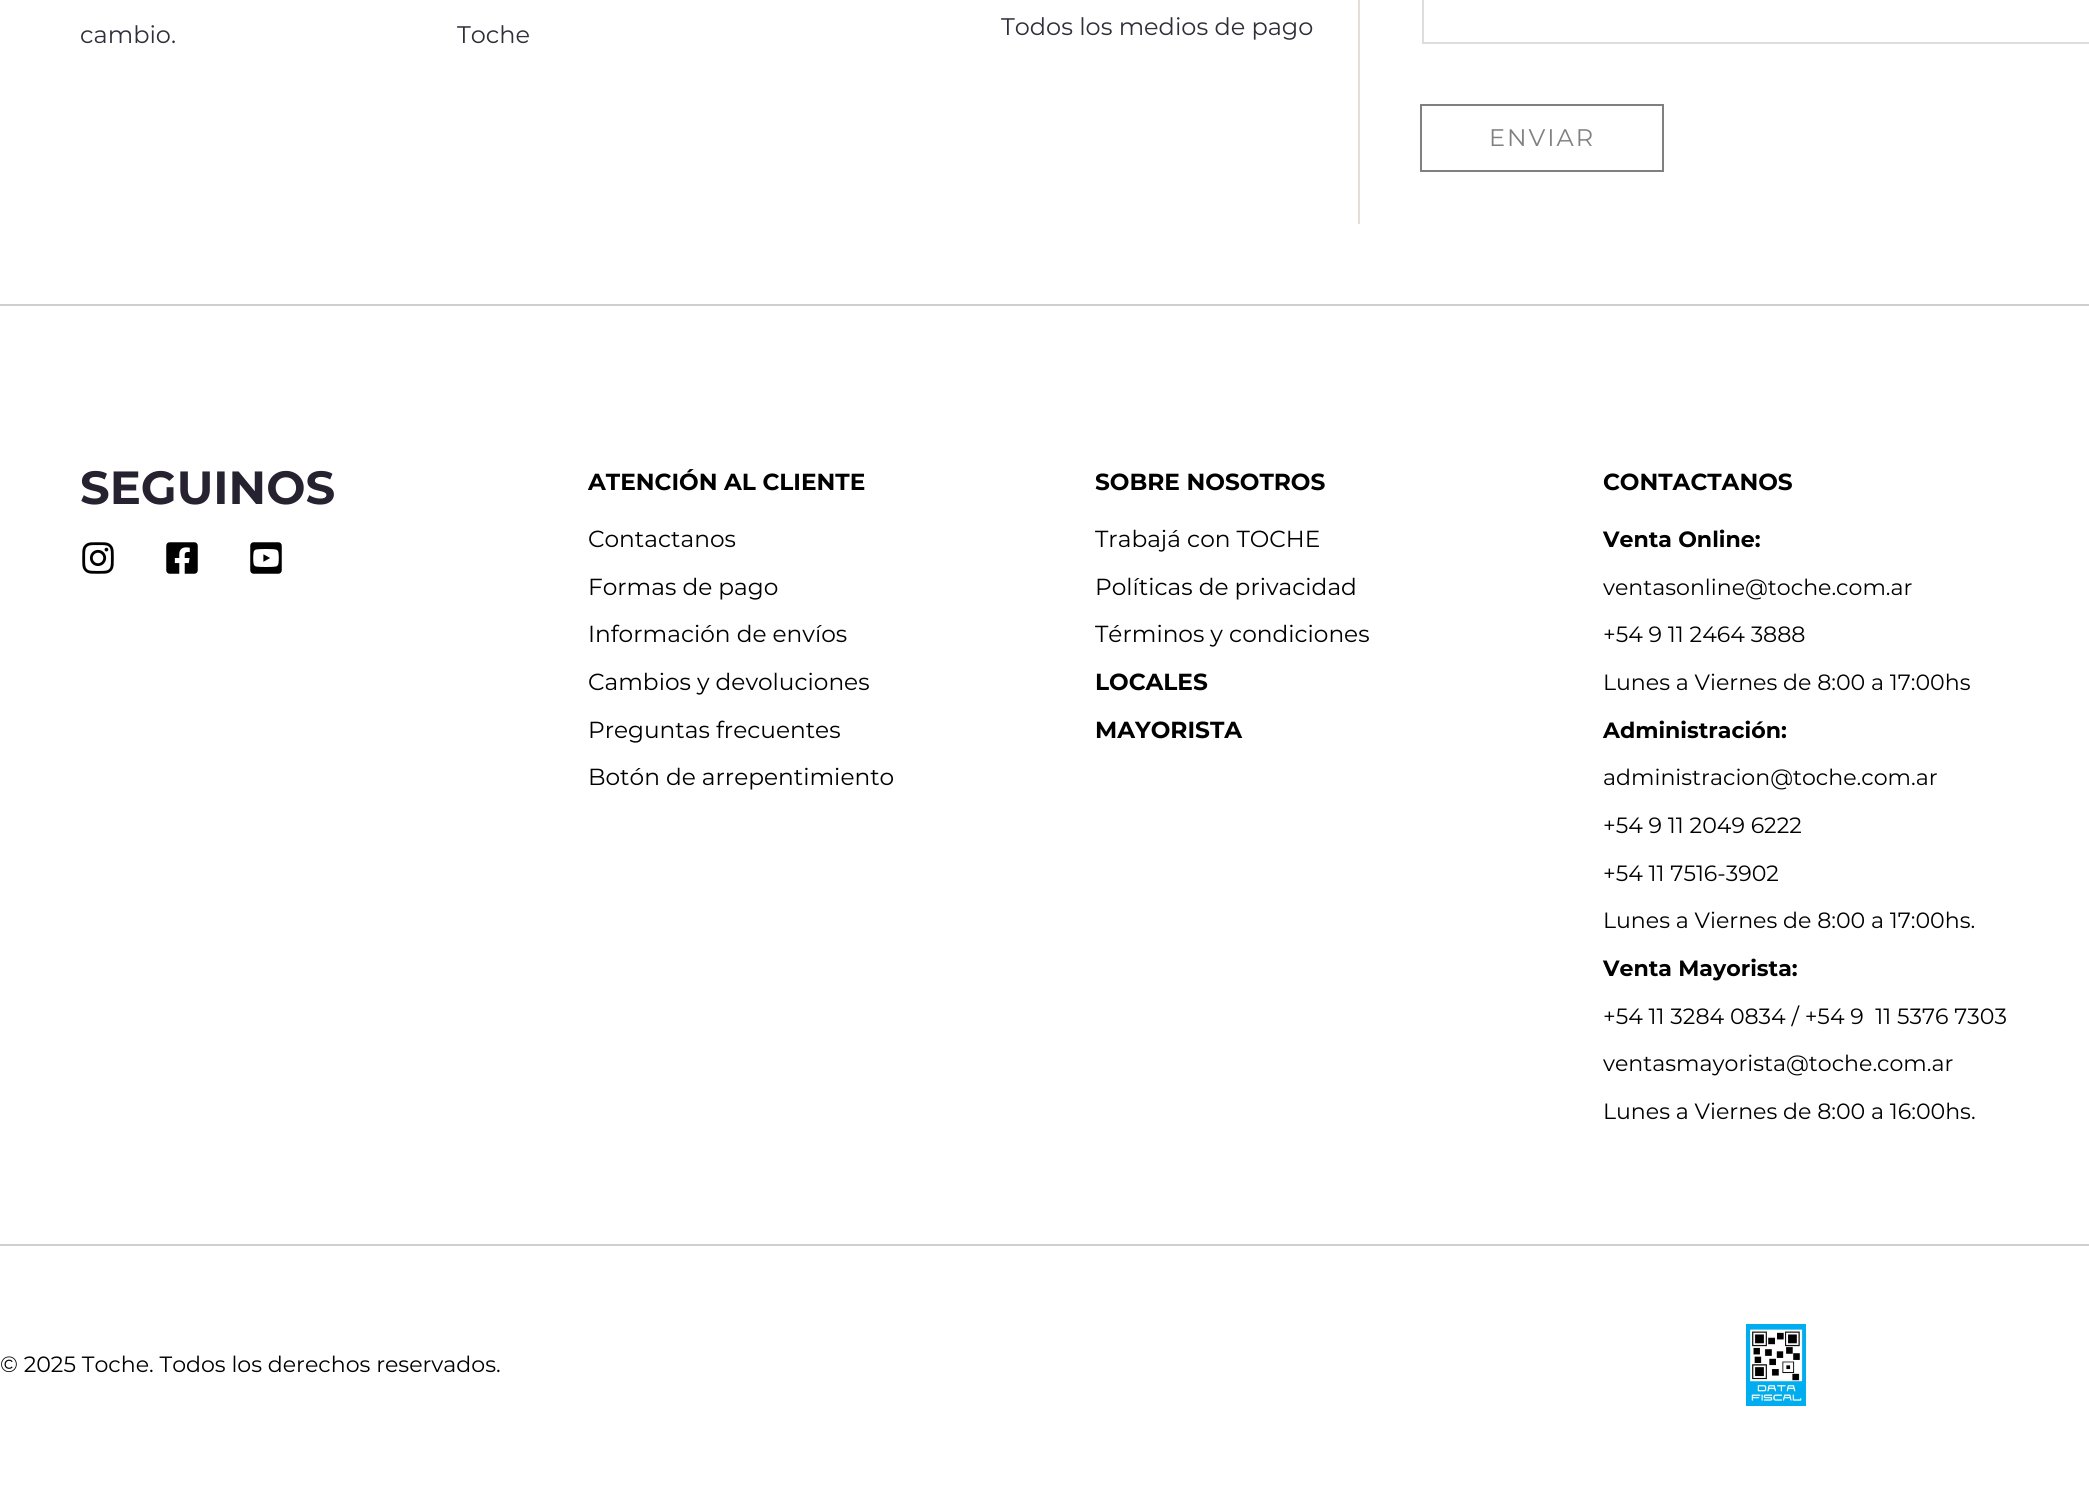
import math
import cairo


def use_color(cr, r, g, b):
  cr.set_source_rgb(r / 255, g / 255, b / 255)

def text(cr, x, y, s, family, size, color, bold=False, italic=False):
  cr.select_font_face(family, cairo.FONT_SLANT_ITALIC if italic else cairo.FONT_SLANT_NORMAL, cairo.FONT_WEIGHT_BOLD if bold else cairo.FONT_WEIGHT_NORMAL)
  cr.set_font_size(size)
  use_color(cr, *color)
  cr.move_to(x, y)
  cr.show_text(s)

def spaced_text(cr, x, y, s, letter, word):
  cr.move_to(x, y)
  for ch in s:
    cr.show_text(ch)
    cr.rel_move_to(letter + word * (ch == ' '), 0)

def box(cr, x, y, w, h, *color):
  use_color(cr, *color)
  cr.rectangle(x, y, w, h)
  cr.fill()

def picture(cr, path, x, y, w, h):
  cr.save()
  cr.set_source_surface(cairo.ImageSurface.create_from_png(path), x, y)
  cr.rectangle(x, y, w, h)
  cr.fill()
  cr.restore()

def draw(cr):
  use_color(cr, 255, 255, 255)
  cr.paint()
  box(cr, 1358, 0, 2, 224, 231, 221, 215)
  cr.rectangle(1423, -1, 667, 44)
  use_color(cr, 221, 221, 221)
  cr.stroke()
  cr.rectangle(1421, 105, 242, 66)
  use_color(cr, 128, 128, 128)
  cr.stroke()
  box(cr, 0, 304, 2089, 2, 207, 207, 207)
  picture(cr, "img_01.png", 82, 542, 32, 32)
  picture(cr, "img_02.png", 166, 542, 32, 32)
  picture(cr, "img_03.png", 250, 542, 32, 32)
  box(cr, 0, 1244, 2089, 2, 207, 207, 207)
  picture(cr, "img_04.png", 1746, 1324, 60, 82)
  text(cr, 80, 43, "cambio.", "Montserrat", 24, (49, 46, 57))
  text(cr, 457, 43, "Toche", "Montserrat", 24, (49, 46, 57))
  text(cr, 1001, 35, "Todos los medios de pago", "Montserrat", 24, (49, 46, 57))
  use_color(cr, 128, 128, 128)
  spaced_text(cr, 1489, 146, "ENVIAR", 2, 0)
  text(cr, 80, 504, "SEGUINOS", "Montserrat", 46.5, (38, 34, 47), bold=True)
  text(cr, 588, 490, "ATENCIÓN AL CLIENTE", "Montserrat", 23.25, (0, 0, 0), bold=True)
  text(cr, 588, 547, "Contactanos", "Montserrat", 23.25, (0, 0, 0))
  text(cr, 588, 595, "Formas de pago", "Montserrat", 23.25, (0, 0, 0))
  text(cr, 588, 642, "Información de envíos", "Montserrat", 23.25, (0, 0, 0))
  text(cr, 588, 690, "Cambios y devoluciones", "Montserrat", 23.25, (0, 0, 0))
  text(cr, 588, 738, "Preguntas frecuentes", "Montserrat", 23.25, (0, 0, 0))
  text(cr, 588, 785, "Botón de arrepentimiento", "Montserrat", 23.25, (0, 0, 0))
  text(cr, 1095, 490, "SOBRE NOSOTROS", "Montserrat", 23.25, (0, 0, 0), bold=True)
  text(cr, 1095, 547, "Trabajá con TOCHE", "Montserrat", 23.25, (0, 0, 0))
  text(cr, 1095, 595, "Políticas de privacidad", "Montserrat", 23.25, (0, 0, 0))
  text(cr, 1095, 642, "Términos y condiciones", "Montserrat", 23.25, (0, 0, 0))
  text(cr, 1095, 690, "LOCALES", "Montserrat", 23.25, (0, 0, 0), bold=True)
  text(cr, 1095, 738, "MAYORISTA", "Montserrat", 23.25, (0, 0, 0), bold=True)
  text(cr, 1603, 490, "CONTACTANOS", "Montserrat", 23.25, (0, 0, 0), bold=True)
  text(cr, 1603, 547, "Venta Online:", "Montserrat", 22.1, (0, 0, 0), bold=True)
  text(cr, 1603, 595, "ventasonline@toche.com.ar", "Montserrat", 22.1, (0, 0, 0))
  text(cr, 1603, 642, "+54 9 11 2464 3888", "Montserrat", 22.1, (0, 0, 0))
  text(cr, 1603, 690, "Lunes a Viernes de 8:00 a 17:00hs", "Montserrat", 22.1, (0, 0, 0))
  text(cr, 1603, 738, "Administración:", "Montserrat", 22.1, (0, 0, 0), bold=True)
  text(cr, 1603, 785, "administracion@toche.com.ar", "Montserrat", 22.1, (0, 0, 0))
  text(cr, 1603, 833, "+54 9 11 2049 6222", "Montserrat", 22.1, (0, 0, 0))
  text(cr, 1603, 881, "+54 11 7516-3902", "Montserrat", 22.1, (0, 0, 0))
  text(cr, 1603, 928, "Lunes a Viernes de 8:00 a 17:00hs.", "Montserrat", 22.1, (0, 0, 0))
  text(cr, 1603, 976, "Venta Mayorista:", "Montserrat", 22.1, (0, 0, 0), bold=True)
  text(cr, 1603, 1024, "+54 11 3284 0834 / +54 9  11 5376 7303", "Montserrat", 22.1, (0, 0, 0))
  text(cr, 1603, 1071, "ventasmayorista@toche.com.ar", "Montserrat", 22.1, (0, 0, 0))
  text(cr, 1603, 1119, "Lunes a Viernes de 8:00 a 16:00hs.", "Montserrat", 22.1, (0, 0, 0))
  text(cr, 0, 1372, "© 2025 Toche. Todos los derechos reservados.", "Montserrat", 22.1, (0, 0, 0))


surface = cairo.ImageSurface(cairo.FORMAT_RGB24, 2089, 1485)
cr = cairo.Context(surface)
options = cairo.FontOptions()
options.set_hint_metrics(cairo.HINT_METRICS_OFF)
options.set_hint_style(cairo.HINT_STYLE_NONE)
cr.set_font_options(options)
cr.set_miter_limit(4)
draw(cr)
surface.write_to_png("out.png")
